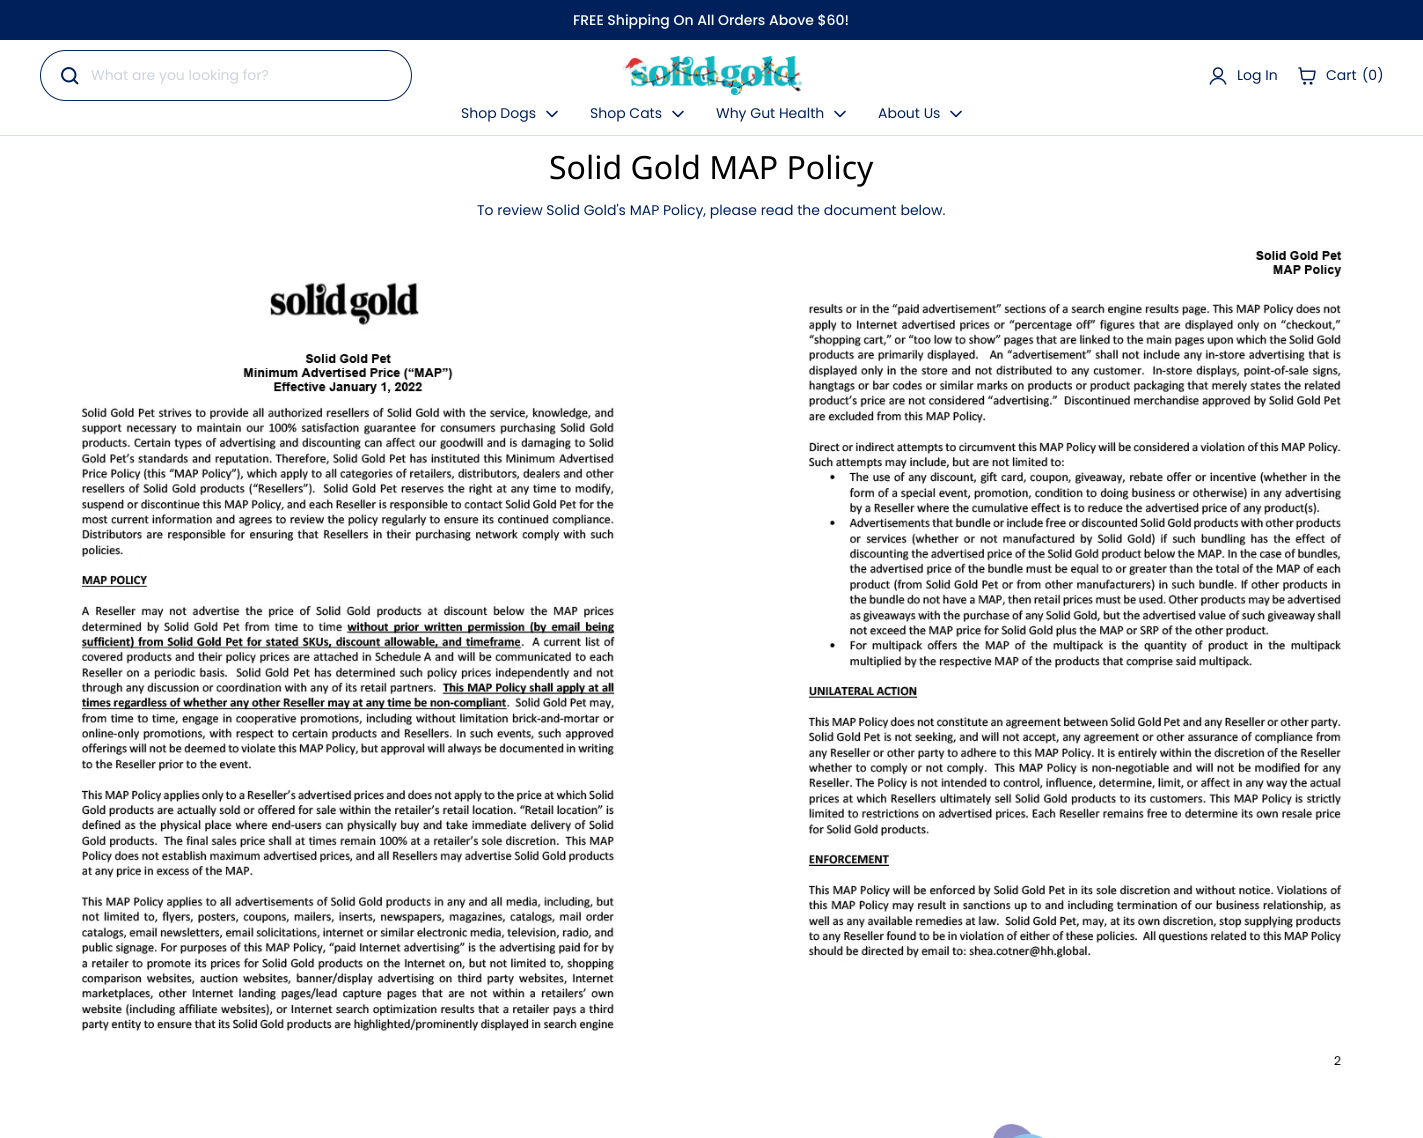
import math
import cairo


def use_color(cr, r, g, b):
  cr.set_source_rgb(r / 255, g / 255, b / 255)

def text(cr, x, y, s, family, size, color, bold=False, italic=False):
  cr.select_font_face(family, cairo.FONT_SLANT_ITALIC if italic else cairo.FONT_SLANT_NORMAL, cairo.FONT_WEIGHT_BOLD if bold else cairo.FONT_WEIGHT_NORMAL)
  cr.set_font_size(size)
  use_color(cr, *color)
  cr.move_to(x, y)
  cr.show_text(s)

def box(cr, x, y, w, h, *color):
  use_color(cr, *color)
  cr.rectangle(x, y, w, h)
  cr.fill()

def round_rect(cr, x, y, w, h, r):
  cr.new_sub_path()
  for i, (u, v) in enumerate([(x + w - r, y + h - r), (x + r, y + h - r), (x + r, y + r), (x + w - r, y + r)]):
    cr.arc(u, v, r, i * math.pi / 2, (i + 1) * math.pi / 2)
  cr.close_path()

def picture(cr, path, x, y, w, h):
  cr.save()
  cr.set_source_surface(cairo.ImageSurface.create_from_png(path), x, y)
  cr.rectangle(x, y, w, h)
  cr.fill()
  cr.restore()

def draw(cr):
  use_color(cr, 255, 255, 255)
  cr.paint()
  box(cr, 0, 0, 1423, 40, 0, 32, 91)
  box(cr, 0, 135, 1423, 1, 217, 222, 230)
  round_rect(cr, 40.5, 50.5, 371, 50, 25)
  use_color(cr, 0, 32, 91)
  cr.set_line_width(1)
  cr.stroke()
  cr.new_path()
  cr.move_to(73.5, 79.5)
  cr.curve_to(79.5, 73, 70.5, 64, 64, 70)
  cr.curve_to(58, 76.5, 67, 85.5, 73.5, 79.5)
  cr.close_path()
  cr.move_to(73.5, 79.5)
  cr.line_to(78, 84)
  cr.set_line_width(2)
  cr.stroke()
  picture(cr, "img_01.png", 622, 56, 180, 40)
  picture(cr, "img_02.png", 1209, 67, 18, 18)
  picture(cr, "img_03.png", 1298, 67, 18, 18)
  cr.new_path()
  cr.move_to(557, 111.5)
  cr.line_to(552, 116.5)
  cr.line_to(547, 111.5)
  cr.set_line_width(1.6)
  cr.set_line_cap(cairo.LINE_CAP_ROUND)
  cr.set_line_join(cairo.LINE_JOIN_ROUND)
  cr.stroke()
  cr.new_path()
  cr.move_to(683, 111.5)
  cr.line_to(678, 116.5)
  cr.line_to(673, 111.5)
  cr.stroke()
  cr.new_path()
  cr.move_to(845, 111.5)
  cr.line_to(840, 116.5)
  cr.line_to(835, 111.5)
  cr.stroke()
  cr.new_path()
  cr.move_to(961, 111.5)
  cr.line_to(956, 116.5)
  cr.line_to(951, 111.5)
  cr.stroke()
  picture(cr, "img_04.png", 81, 282, 535, 750)
  picture(cr, "img_05.png", 808, 250, 535, 818)
  picture(cr, "img_06.png", 993, 1124, 50, 14)
  text(cr, 573, 25, "FREE Shipping On All Orders Above $60!", "Poppins Medium", 14, (255, 255, 255))
  text(cr, 91, 80, "What are you looking for?", "Poppins", 14, (204, 210, 222))
  text(cr, 1237, 80, "Log In", "Poppins", 14, (0, 32, 91))
  text(cr, 1326, 80, "Cart", "Poppins", 14, (0, 32, 91))
  text(cr, 1362, 80, "(0)", "Poppins", 14, (0, 32, 91))
  text(cr, 461, 118, "Shop Dogs", "Poppins", 14, (0, 32, 91))
  text(cr, 590, 118, "Shop Cats", "Poppins", 14, (0, 32, 91))
  text(cr, 716, 118, "Why Gut Health", "Poppins", 14, (0, 32, 91))
  text(cr, 878, 118, "About Us", "Poppins", 14, (0, 32, 91))
  text(cr, 549, 179, "Solid Gold MAP Policy", "Noto Sans", 32, (0, 0, 0))
  text(cr, 477, 215, "To review Solid Gold's MAP Policy, please read the document below.", "Poppins", 14, (0, 32, 91))


surface = cairo.ImageSurface(cairo.FORMAT_RGB24, 1423, 1138)
cr = cairo.Context(surface)
options = cairo.FontOptions()
options.set_hint_metrics(cairo.HINT_METRICS_OFF)
options.set_hint_style(cairo.HINT_STYLE_NONE)
cr.set_font_options(options)
cr.set_miter_limit(4)
draw(cr)
surface.write_to_png("out.png")
